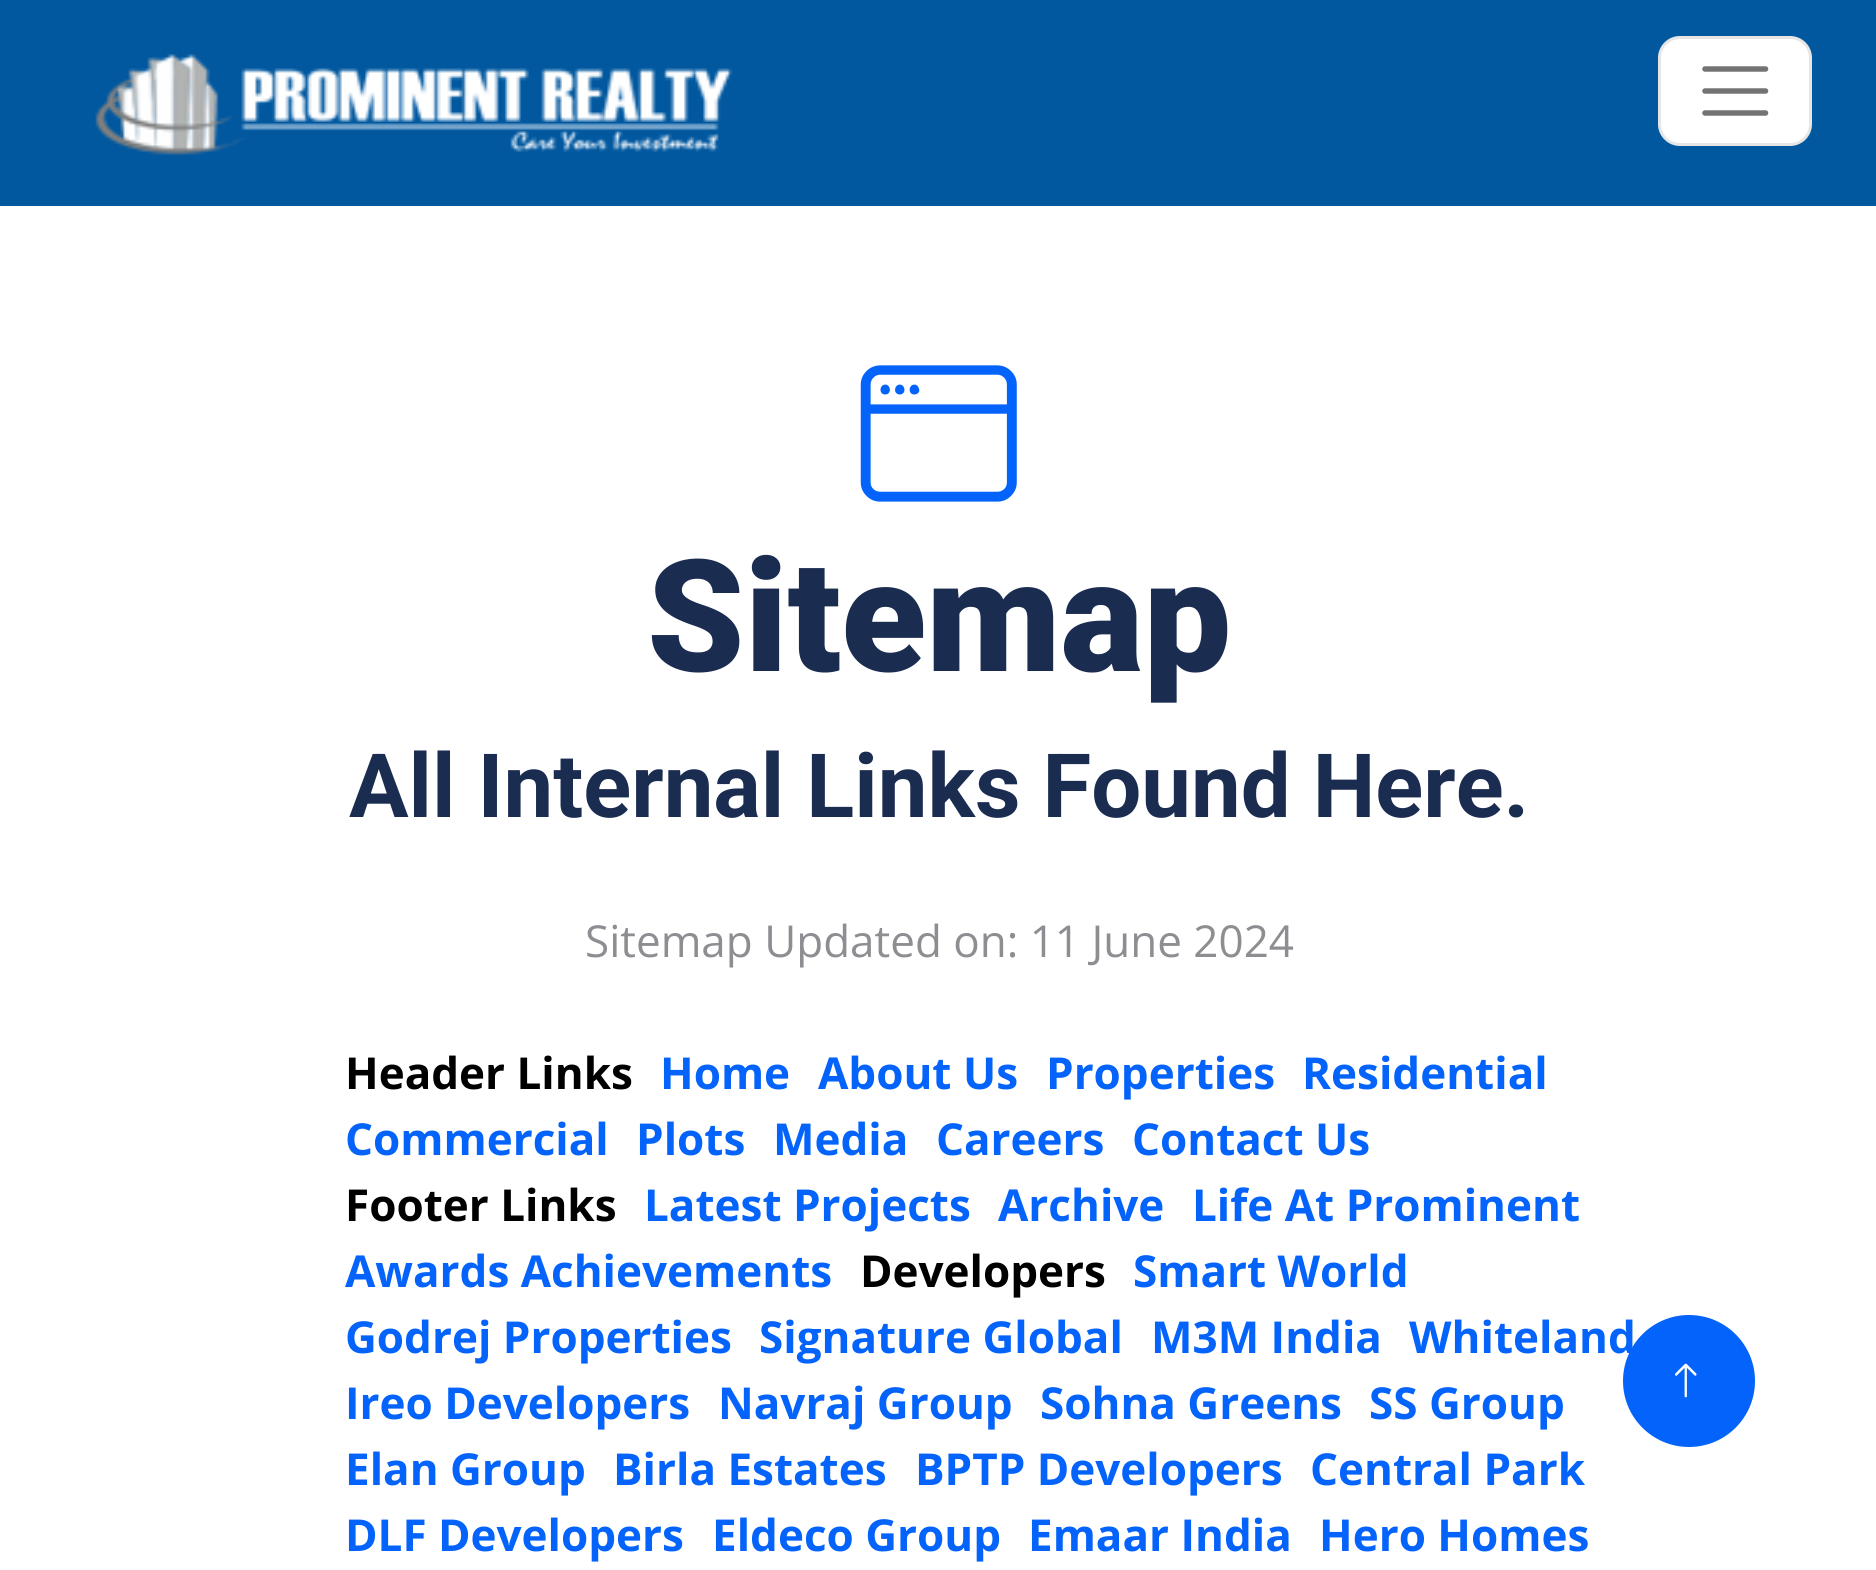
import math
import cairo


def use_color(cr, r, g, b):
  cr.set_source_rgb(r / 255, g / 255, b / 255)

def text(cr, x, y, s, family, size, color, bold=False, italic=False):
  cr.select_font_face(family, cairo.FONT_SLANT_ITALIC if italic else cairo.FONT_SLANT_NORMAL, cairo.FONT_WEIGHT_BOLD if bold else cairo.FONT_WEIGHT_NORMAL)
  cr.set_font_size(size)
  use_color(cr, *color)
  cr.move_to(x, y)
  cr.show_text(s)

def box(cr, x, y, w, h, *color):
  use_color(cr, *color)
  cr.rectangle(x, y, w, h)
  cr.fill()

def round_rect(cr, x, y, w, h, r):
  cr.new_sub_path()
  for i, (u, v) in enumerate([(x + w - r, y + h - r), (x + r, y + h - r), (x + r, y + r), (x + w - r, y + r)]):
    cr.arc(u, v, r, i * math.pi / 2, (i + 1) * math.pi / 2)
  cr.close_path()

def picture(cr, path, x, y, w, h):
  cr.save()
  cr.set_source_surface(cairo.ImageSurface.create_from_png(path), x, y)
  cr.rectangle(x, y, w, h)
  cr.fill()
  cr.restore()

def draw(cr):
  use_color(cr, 255, 255, 255)
  cr.paint()
  box(cr, 0, 0, 1876, 206, 1, 88, 159)
  picture(cr, "img_01.png", 95, 54, 638, 101)
  use_color(cr, 255, 255, 255)
  round_rect(cr, 1658, 36, 154, 110, 22)
  cr.fill()
  round_rect(cr, 1659.5, 37.5, 151, 107, 20.5)
  cr.set_source_rgba(0, 0, 0, 0.1)
  cr.set_line_width(3)
  cr.stroke()
  cr.new_path()
  cr.move_to(1705, 69)
  cr.line_to(1765.5, 69)
  cr.move_to(1705, 91)
  cr.line_to(1765.5, 91)
  cr.move_to(1705, 113)
  cr.line_to(1765.5, 113)
  use_color(cr, 115, 115, 115)
  cr.set_line_width(5.5)
  cr.set_line_cap(cairo.LINE_CAP_ROUND)
  cr.stroke()
  picture(cr, "img_02.png", 860, 365, 157, 137)
  use_color(cr, 4, 99, 250)
  cr.arc(1689, 1381, 66, 0, 2 * math.pi)
  cr.fill()
  picture(cr, "img_03.png", 1675, 1363, 22, 35)
  text(cr, 647, 671, "Sitemap", "Roboto Black", 156, (27, 44, 81))
  text(cr, 349, 817, "All Internal Links Found Here.", "Roboto", 88.7, (27, 44, 81), bold=True)
  text(cr, 585, 957, "Sitemap Updated on: 11 June 2024", "Open Sans", 44, (141, 142, 146))
  text(cr, 345, 1089, "Header Links", "Open Sans", 44, (0, 0, 0), bold=True)
  text(cr, 660, 1089, "Home", "Open Sans", 44, (4, 99, 250), bold=True)
  text(cr, 818, 1089, "About Us", "Open Sans", 44, (4, 99, 250), bold=True)
  text(cr, 1046, 1089, "Properties", "Open Sans", 44, (4, 99, 250), bold=True)
  text(cr, 1302, 1089, "Residential", "Open Sans", 44, (4, 99, 250), bold=True)
  text(cr, 345, 1155, "Commercial", "Open Sans", 44, (4, 99, 250), bold=True)
  text(cr, 636, 1155, "Plots", "Open Sans", 44, (4, 99, 250), bold=True)
  text(cr, 773, 1155, "Media", "Open Sans", 44, (4, 99, 250), bold=True)
  text(cr, 936, 1155, "Careers", "Open Sans", 44, (4, 99, 250), bold=True)
  text(cr, 1132, 1155, "Contact Us", "Open Sans", 44, (4, 99, 250), bold=True)
  text(cr, 345, 1221, "Footer Links", "Open Sans", 44, (0, 0, 0), bold=True)
  text(cr, 644, 1221, "Latest Projects", "Open Sans", 44, (4, 99, 250), bold=True)
  text(cr, 998, 1221, "Archive", "Open Sans", 44, (4, 99, 250), bold=True)
  text(cr, 1192, 1221, "Life At Prominent", "Open Sans", 44, (4, 99, 250), bold=True)
  text(cr, 345, 1287, "Awards Achievements", "Open Sans", 44, (4, 99, 250), bold=True)
  text(cr, 860, 1287, "Developers", "Open Sans", 44, (0, 0, 0), bold=True)
  text(cr, 1133, 1287, "Smart World", "Open Sans", 44, (4, 99, 250), bold=True)
  text(cr, 345, 1353, "Godrej Properties", "Open Sans", 44, (4, 99, 250), bold=True)
  text(cr, 759, 1353, "Signature Global", "Open Sans", 44, (4, 99, 250), bold=True)
  text(cr, 1151, 1353, "M3M India", "Open Sans", 44, (4, 99, 250), bold=True)
  text(cr, 1409, 1353, "Whiteland", "Open Sans", 44, (4, 99, 250), bold=True)
  text(cr, 345, 1419, "Ireo Developers", "Open Sans", 44, (4, 99, 250), bold=True)
  text(cr, 718, 1419, "Navraj Group", "Open Sans", 44, (4, 99, 250), bold=True)
  text(cr, 1040, 1419, "Sohna Greens", "Open Sans", 44, (4, 99, 250), bold=True)
  text(cr, 1369, 1419, "SS Group", "Open Sans", 44, (4, 99, 250), bold=True)
  text(cr, 345, 1485, "Elan Group", "Open Sans", 44, (4, 99, 250), bold=True)
  text(cr, 613, 1485, "Birla Estates", "Open Sans", 44, (4, 99, 250), bold=True)
  text(cr, 915, 1485, "BPTP Developers", "Open Sans", 44, (4, 99, 250), bold=True)
  text(cr, 1310, 1485, "Central Park", "Open Sans", 44, (4, 99, 250), bold=True)
  text(cr, 345, 1551, "DLF Developers", "Open Sans", 44, (4, 99, 250), bold=True)
  text(cr, 712, 1551, "Eldeco Group", "Open Sans", 44, (4, 99, 250), bold=True)
  text(cr, 1028, 1551, "Emaar India", "Open Sans", 44, (4, 99, 250), bold=True)
  text(cr, 1319, 1551, "Hero Homes", "Open Sans", 44, (4, 99, 250), bold=True)


surface = cairo.ImageSurface(cairo.FORMAT_RGB24, 1876, 1570)
cr = cairo.Context(surface)
options = cairo.FontOptions()
options.set_hint_metrics(cairo.HINT_METRICS_OFF)
options.set_hint_style(cairo.HINT_STYLE_NONE)
cr.set_font_options(options)
cr.set_miter_limit(4)
draw(cr)
surface.write_to_png("out.png")
